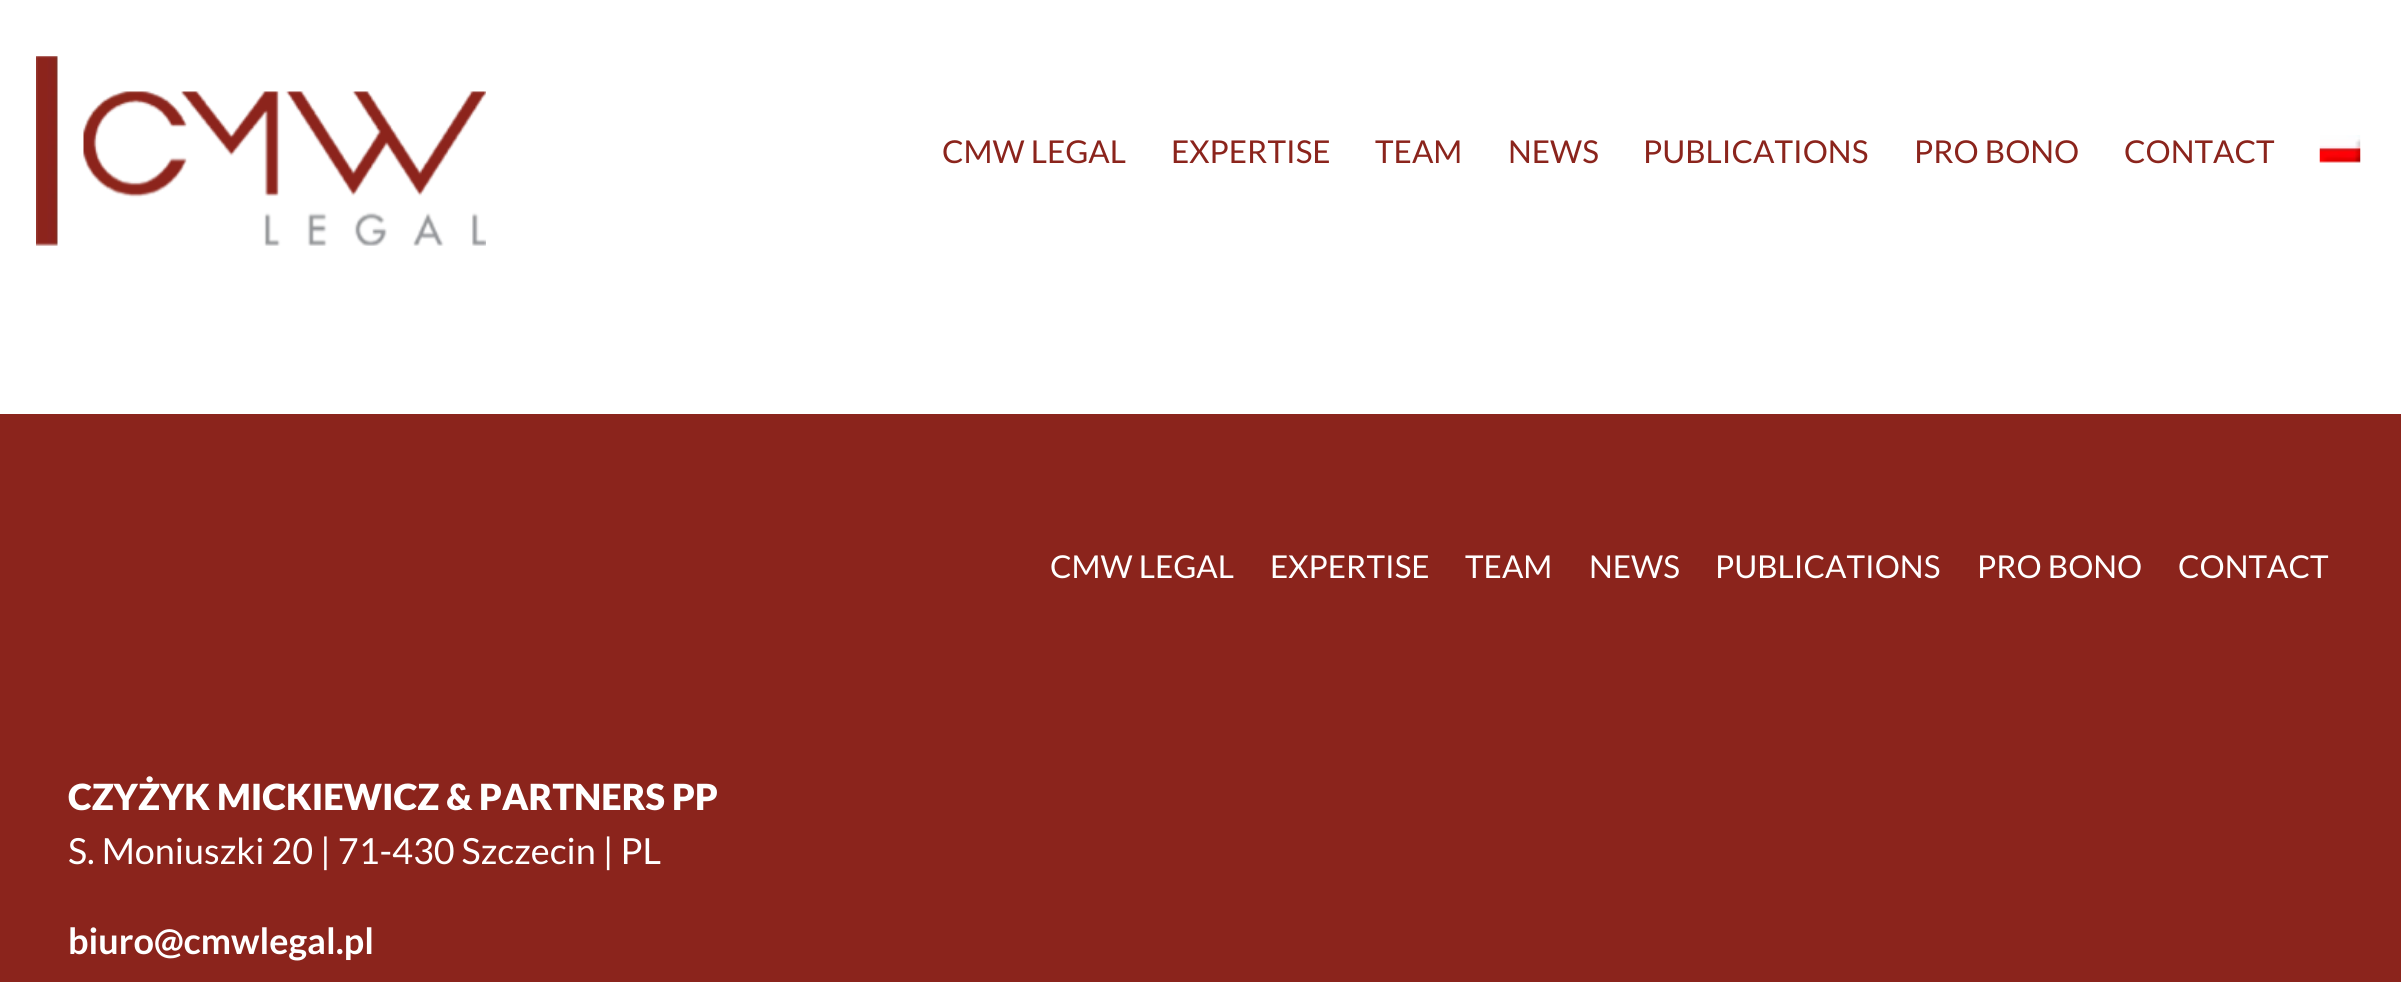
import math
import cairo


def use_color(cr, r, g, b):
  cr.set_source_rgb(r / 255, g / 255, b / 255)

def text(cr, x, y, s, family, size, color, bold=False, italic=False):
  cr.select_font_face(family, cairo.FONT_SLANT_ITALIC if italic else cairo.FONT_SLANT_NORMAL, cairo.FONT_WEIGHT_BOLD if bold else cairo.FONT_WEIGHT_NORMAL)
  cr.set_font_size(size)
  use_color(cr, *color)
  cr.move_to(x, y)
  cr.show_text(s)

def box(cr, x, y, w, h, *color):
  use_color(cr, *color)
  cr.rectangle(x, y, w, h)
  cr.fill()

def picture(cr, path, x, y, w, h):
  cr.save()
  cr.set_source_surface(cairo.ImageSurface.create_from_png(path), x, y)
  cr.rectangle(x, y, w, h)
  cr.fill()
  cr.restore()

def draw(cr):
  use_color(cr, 255, 255, 255)
  cr.paint()
  picture(cr, "img_01.png", 36, 56, 450, 190)
  picture(cr, "img_02.png", 2319, 135, 42, 28)
  box(cr, 0, 414, 2401, 568, 139, 36, 28)
  text(cr, 942, 163, "CMW LEGAL", "Lato", 31.5, (139, 36, 28))
  text(cr, 1171, 163, "EXPERTISE", "Lato", 31.5, (139, 36, 28))
  text(cr, 1375, 163, "TEAM", "Lato", 31.5, (139, 36, 28))
  text(cr, 1508, 163, "NEWS", "Lato", 31.5, (139, 36, 28))
  text(cr, 1643, 163, "PUBLICATIONS", "Lato", 31.5, (139, 36, 28))
  text(cr, 1914, 163, "PRO BONO", "Lato", 31.5, (139, 36, 28))
  text(cr, 2124, 163, "CONTACT", "Lato", 31.5, (139, 36, 28))
  text(cr, 1050, 578, "CMW LEGAL", "Lato", 31.5, (255, 255, 255))
  text(cr, 1270, 578, "EXPERTISE", "Lato", 31.5, (255, 255, 255))
  text(cr, 1465, 578, "TEAM", "Lato", 31.5, (255, 255, 255))
  text(cr, 1589, 578, "NEWS", "Lato", 31.5, (255, 255, 255))
  text(cr, 1715, 578, "PUBLICATIONS", "Lato", 31.5, (255, 255, 255))
  text(cr, 1977, 578, "PRO BONO", "Lato", 31.5, (255, 255, 255))
  text(cr, 2178, 578, "CONTACT", "Lato", 31.5, (255, 255, 255))
  text(cr, 68, 810, "CZYŻYK MICKIEWICZ & PARTNERS PP", "Lato Black", 36, (255, 255, 255))
  text(cr, 68, 864, "S. Moniuszki 20 | 71-430 Szczecin | PL", "Lato", 36, (255, 255, 255))
  text(cr, 68, 954, "biuro@cmwlegal.pl", "Lato", 36, (255, 255, 255), bold=True)


surface = cairo.ImageSurface(cairo.FORMAT_RGB24, 2401, 982)
cr = cairo.Context(surface)
options = cairo.FontOptions()
options.set_hint_metrics(cairo.HINT_METRICS_OFF)
options.set_hint_style(cairo.HINT_STYLE_NONE)
cr.set_font_options(options)
cr.set_miter_limit(4)
draw(cr)
surface.write_to_png("out.png")
